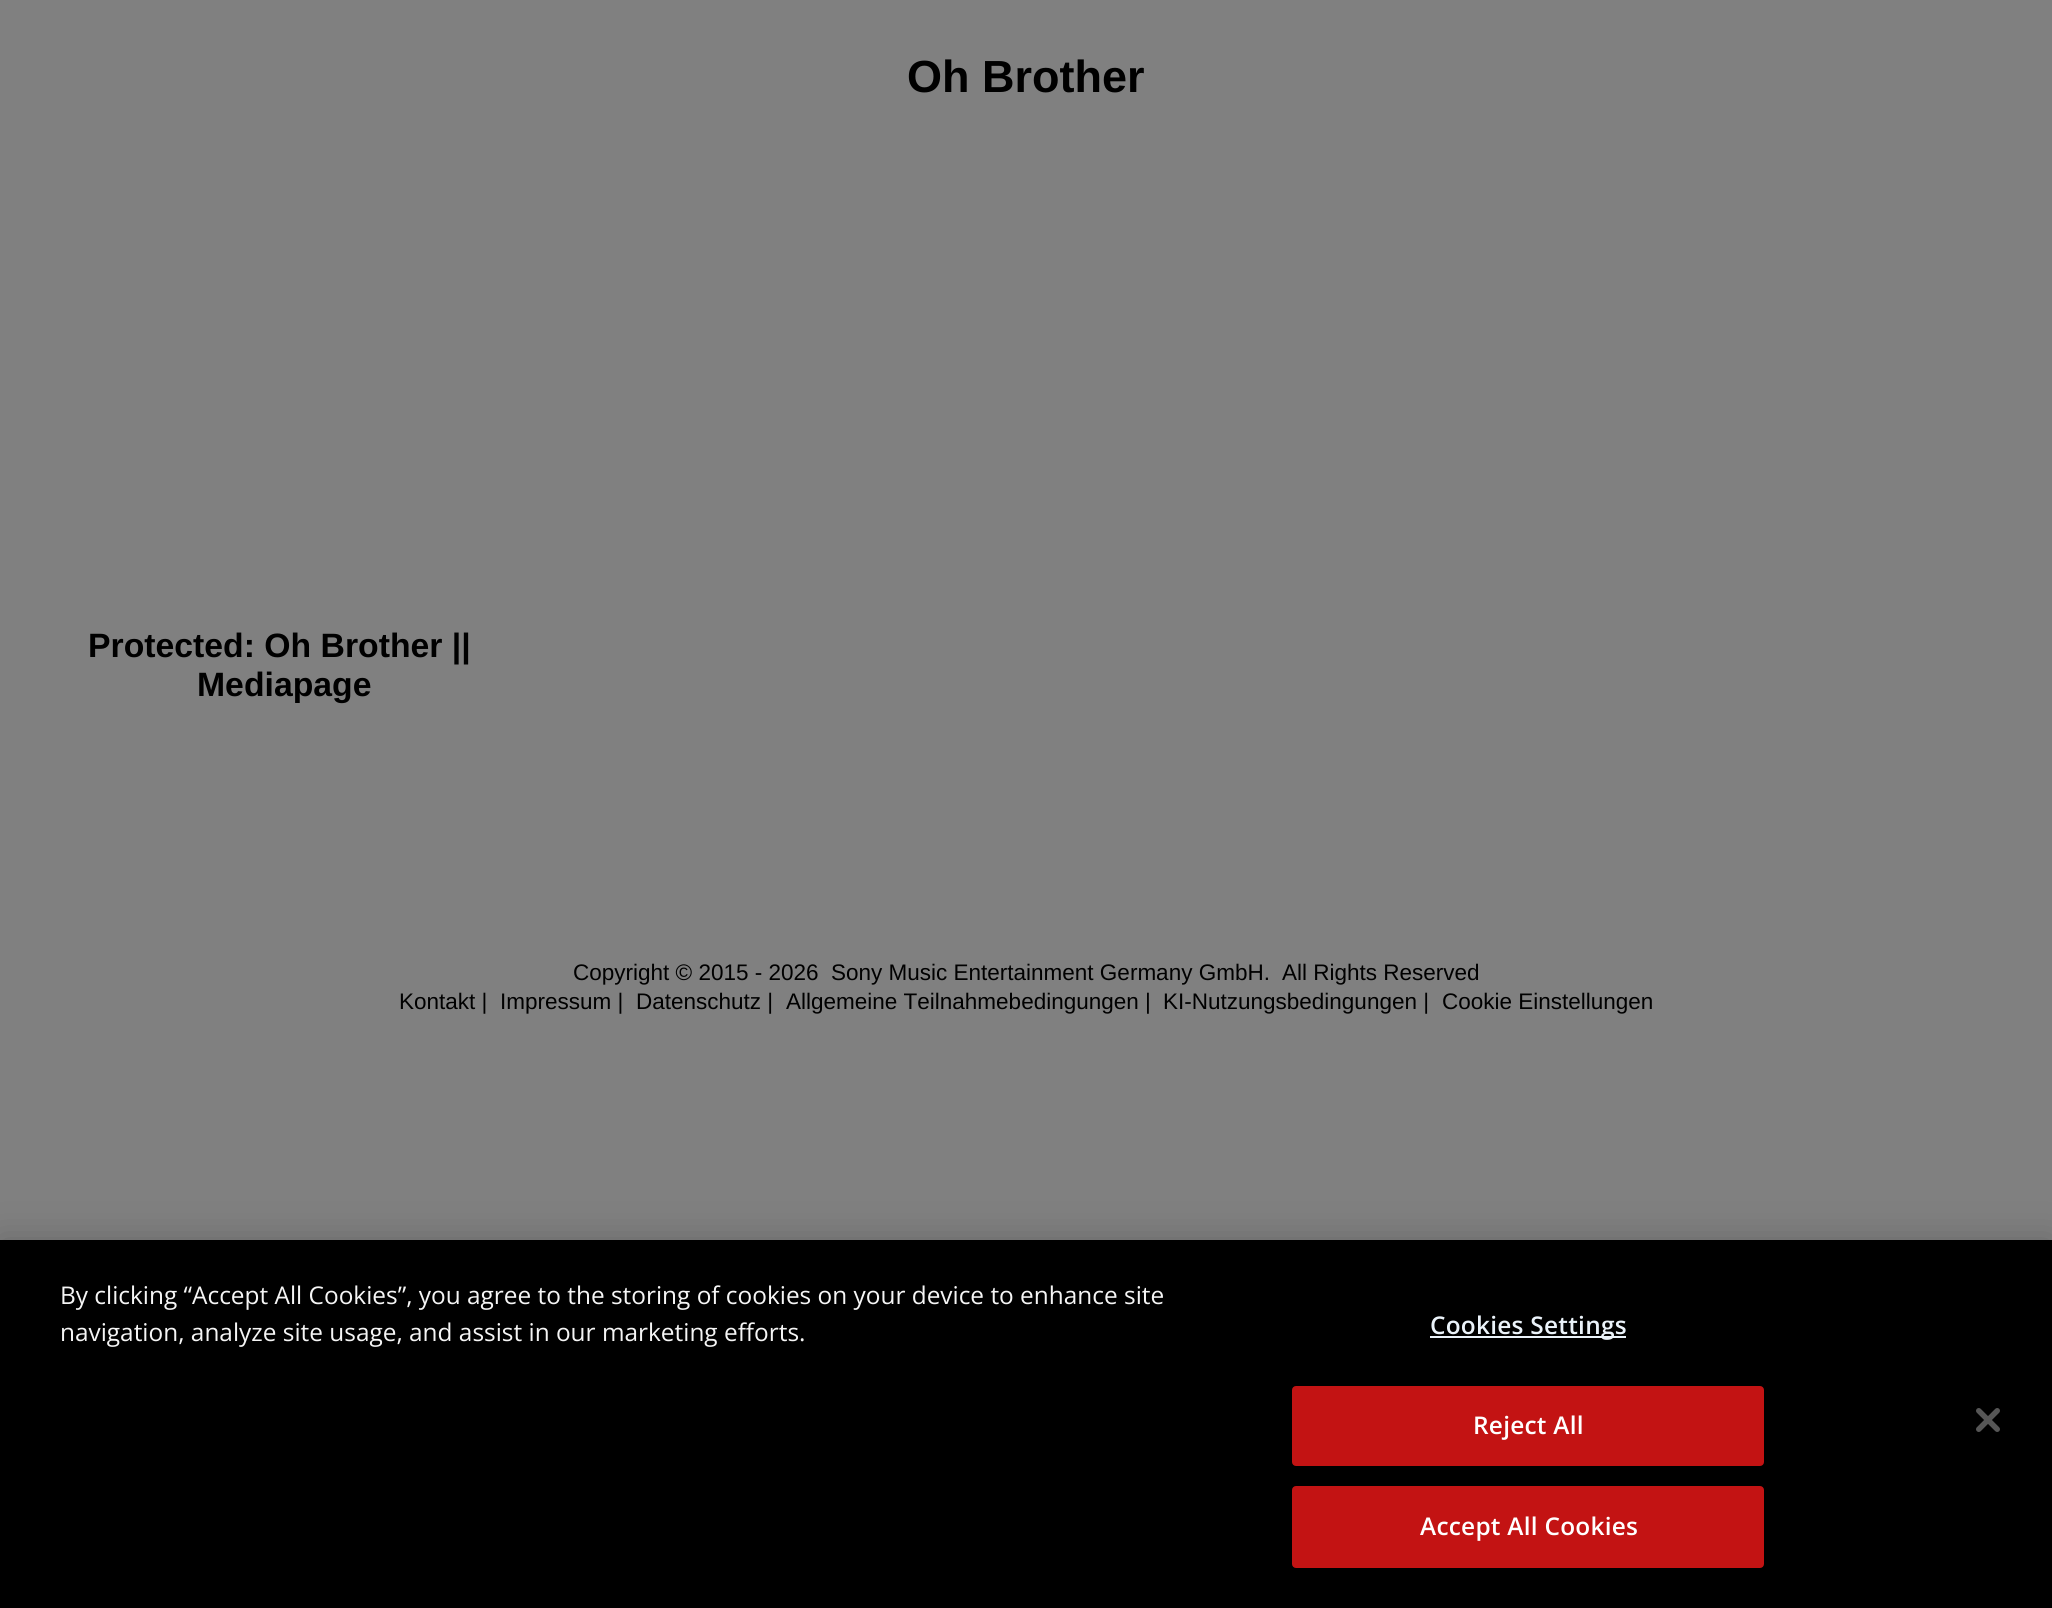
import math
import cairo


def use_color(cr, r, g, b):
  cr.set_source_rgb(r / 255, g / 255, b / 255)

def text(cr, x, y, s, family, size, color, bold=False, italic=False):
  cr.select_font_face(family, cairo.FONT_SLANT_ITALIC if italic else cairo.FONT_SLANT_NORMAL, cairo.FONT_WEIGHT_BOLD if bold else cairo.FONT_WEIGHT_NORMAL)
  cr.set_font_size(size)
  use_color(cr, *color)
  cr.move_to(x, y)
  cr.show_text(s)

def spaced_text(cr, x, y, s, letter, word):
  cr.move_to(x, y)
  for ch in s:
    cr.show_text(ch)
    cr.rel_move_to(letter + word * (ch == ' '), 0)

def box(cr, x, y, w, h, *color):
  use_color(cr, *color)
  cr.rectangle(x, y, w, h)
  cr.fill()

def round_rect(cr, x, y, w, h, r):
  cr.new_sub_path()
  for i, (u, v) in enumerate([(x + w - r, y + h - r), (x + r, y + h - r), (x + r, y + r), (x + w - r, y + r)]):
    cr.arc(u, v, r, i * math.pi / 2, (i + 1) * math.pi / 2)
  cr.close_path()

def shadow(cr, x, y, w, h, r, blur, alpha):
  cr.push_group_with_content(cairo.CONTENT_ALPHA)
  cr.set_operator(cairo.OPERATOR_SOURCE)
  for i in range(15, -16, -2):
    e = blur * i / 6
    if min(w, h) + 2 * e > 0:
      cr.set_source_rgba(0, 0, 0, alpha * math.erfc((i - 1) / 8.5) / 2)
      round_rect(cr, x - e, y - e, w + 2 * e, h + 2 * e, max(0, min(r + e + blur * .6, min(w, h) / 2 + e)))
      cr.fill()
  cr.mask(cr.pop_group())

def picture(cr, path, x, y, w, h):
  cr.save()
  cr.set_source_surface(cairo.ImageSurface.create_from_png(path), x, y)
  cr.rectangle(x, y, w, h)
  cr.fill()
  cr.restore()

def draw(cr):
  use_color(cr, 128, 128, 128)
  cr.paint()
  use_color(cr, 0, 0, 0)
  shadow(cr, 0, 1240, 2052, 368, 0, 18, 0.2)
  box(cr, 0, 1240, 2052, 368, 0, 0, 0)
  box(cr, 1430, 1336, 196, 2, 235, 243, 250)
  use_color(cr, 195, 19, 19)
  round_rect(cr, 1293, 1387, 470, 78, 3)
  cr.fill_preserve()
  cr.stroke()
  round_rect(cr, 1293, 1487, 470, 80, 3)
  cr.fill_preserve()
  cr.stroke()
  picture(cr, "img_01.png", 1976, 1408, 24, 24)
  text(cr, 907, 92, "Oh Brother", "Liberation Sans", 45, (0, 0, 0), bold=True)
  text(cr, 88, 657, "Protected: Oh Brother ||", "Liberation Sans", 33.75, (0, 0, 0), bold=True)
  text(cr, 197, 696, "Mediapage", "Liberation Sans", 33.75, (0, 0, 0), bold=True)
  text(cr, 573, 980, "Copyright © 2015 - 2026", "Liberation Sans", 22.5, (0, 0, 0))
  text(cr, 831, 980, "Sony Music Entertainment Germany GmbH.", "Liberation Sans", 22.5, (0, 0, 0))
  text(cr, 1282, 980, "All Rights Reserved", "Liberation Sans", 22.5, (0, 0, 0))
  text(cr, 399, 1009, "Kontakt |", "Liberation Sans", 22.5, (0, 0, 0))
  text(cr, 500, 1009, "Impressum |", "Liberation Sans", 22.5, (0, 0, 0))
  text(cr, 636, 1009, "Datenschutz |", "Liberation Sans", 22.5, (0, 0, 0))
  text(cr, 786, 1009, "Allgemeine Teilnahmebedingungen |", "Liberation Sans", 22.5, (0, 0, 0))
  text(cr, 1163, 1009, "KI-Nutzungsbedingungen |", "Liberation Sans", 22.5, (0, 0, 0))
  text(cr, 1442, 1009, "Cookie Einstellungen", "Liberation Sans", 22.5, (0, 0, 0))
  text(cr, 60, 1304, "By clicking “Accept All Cookies”, you agree to the storing of cookies on your device to enhance site", "Open Sans", 24.4, (245, 245, 245))
  text(cr, 60, 1341, "navigation, analyze site usage, and assist in our marketing efforts.", "Open Sans", 24.4, (245, 245, 245))
  cr.select_font_face("Open Sans SemiBold")
  use_color(cr, 235, 243, 250)
  spaced_text(cr, 1430, 1334, "Cookies Settings", 0.25, 0)
  use_color(cr, 255, 255, 255)
  spaced_text(cr, 1473, 1434, "Reject All", 0.25, 0)
  spaced_text(cr, 1420, 1535, "Accept All Cookies", 0.25, 0)


surface = cairo.ImageSurface(cairo.FORMAT_RGB24, 2052, 1608)
cr = cairo.Context(surface)
options = cairo.FontOptions()
options.set_hint_metrics(cairo.HINT_METRICS_OFF)
options.set_hint_style(cairo.HINT_STYLE_NONE)
cr.set_font_options(options)
cr.set_miter_limit(4)
draw(cr)
surface.write_to_png("out.png")
